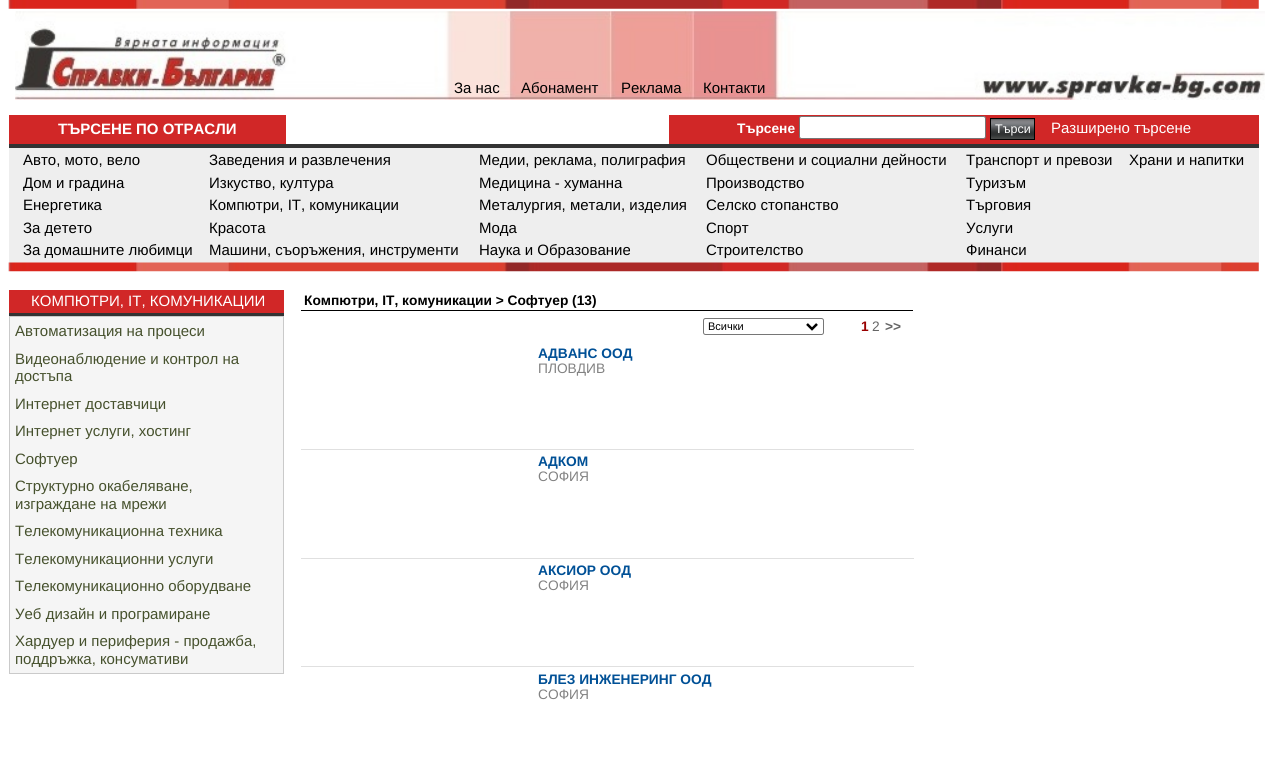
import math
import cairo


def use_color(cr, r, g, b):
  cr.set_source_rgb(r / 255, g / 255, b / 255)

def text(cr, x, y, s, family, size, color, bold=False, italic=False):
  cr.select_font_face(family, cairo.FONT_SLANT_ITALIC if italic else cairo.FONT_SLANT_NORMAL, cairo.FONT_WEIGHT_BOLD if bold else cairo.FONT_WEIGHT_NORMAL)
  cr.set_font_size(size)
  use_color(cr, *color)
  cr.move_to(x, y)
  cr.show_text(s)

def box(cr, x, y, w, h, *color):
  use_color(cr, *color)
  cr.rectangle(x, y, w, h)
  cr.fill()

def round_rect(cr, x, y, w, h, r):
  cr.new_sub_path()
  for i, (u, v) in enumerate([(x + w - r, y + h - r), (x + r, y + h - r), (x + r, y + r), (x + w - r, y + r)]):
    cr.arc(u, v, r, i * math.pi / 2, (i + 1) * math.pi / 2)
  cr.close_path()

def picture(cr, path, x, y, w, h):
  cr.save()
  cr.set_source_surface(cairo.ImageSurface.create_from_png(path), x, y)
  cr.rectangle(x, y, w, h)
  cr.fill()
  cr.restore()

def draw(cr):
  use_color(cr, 255, 255, 255)
  cr.paint()
  picture(cr, "img_01.png", 8, 0, 1251, 9)
  picture(cr, "img_02.png", 15, 11, 1250, 89)
  box(cr, 9, 115, 277, 29, 209, 39, 39)
  box(cr, 669, 115, 590, 29, 209, 39, 39)
  use_color(cr, 255, 255, 255)
  round_rect(cr, 799.5, 116.5, 186, 22, 2)
  cr.fill_preserve()
  use_color(cr, 118, 118, 118)
  cr.set_line_width(1)
  cr.stroke()
  picture(cr, "img_03.png", 991, 119, 43, 20)
  cr.rectangle(990.5, 118.5, 44, 21)
  use_color(cr, 0, 0, 0)
  cr.stroke()
  box(cr, 9, 148, 1250, 123, 238, 238, 238)
  box(cr, 9, 144, 1250, 4, 51, 51, 51)
  picture(cr, "img_04.png", 8, 262, 1251, 10)
  box(cr, 9, 290, 275, 23, 209, 39, 39)
  box(cr, 9, 313, 275, 3, 51, 51, 51)
  use_color(cr, 245, 245, 245)
  cr.rectangle(9.5, 316.5, 274, 357)
  cr.fill_preserve()
  use_color(cr, 202, 202, 202)
  cr.stroke()
  box(cr, 301, 310, 612, 1, 0, 0, 0)
  round_rect(cr, 703.5, 318.5, 120, 16, 2)
  use_color(cr, 118, 118, 118)
  cr.stroke()
  cr.new_path()
  cr.move_to(807, 324)
  cr.line_to(812, 329)
  cr.line_to(817, 324)
  use_color(cr, 0, 0, 0)
  cr.set_line_width(2.5)
  cr.stroke()
  box(cr, 301, 449, 613, 1, 224, 224, 224)
  box(cr, 301, 558, 613, 1, 224, 224, 224)
  box(cr, 301, 666, 613, 1, 224, 224, 224)
  text(cr, 454, 93, "За нас", "Liberation Sans", 15, (0, 0, 0))
  text(cr, 521, 93, "Абонамент", "Liberation Sans", 15, (0, 0, 0))
  text(cr, 621, 93, "Реклама", "Liberation Sans", 15, (0, 0, 0))
  text(cr, 703, 93, "Контакти", "Liberation Sans", 15, (0, 0, 0))
  text(cr, 58, 134, "ТЪРСЕНЕ ПО ОТРАСЛИ", "Liberation Sans", 15, (255, 255, 255), bold=True)
  text(cr, 737, 133, "Tърсене", "Liberation Sans", 13.75, (255, 255, 255), bold=True)
  text(cr, 995, 133, "Tърси", "Liberation Sans", 12.5, (255, 255, 255))
  text(cr, 1051, 133, "Разширено търсене", "Liberation Sans", 15, (255, 255, 255))
  text(cr, 23, 165, "Авто, мото, вело", "Liberation Sans", 15, (0, 0, 0))
  text(cr, 23, 188, "Дом и градина", "Liberation Sans", 15, (0, 0, 0))
  text(cr, 23, 210, "Енергетика", "Liberation Sans", 15, (0, 0, 0))
  text(cr, 23, 233, "За детето", "Liberation Sans", 15, (0, 0, 0))
  text(cr, 23, 255, "За домашните любимци", "Liberation Sans", 15, (0, 0, 0))
  text(cr, 209, 165, "Заведения и развлечения", "Liberation Sans", 15, (0, 0, 0))
  text(cr, 209, 188, "Изкуство, култура", "Liberation Sans", 15, (0, 0, 0))
  text(cr, 209, 210, "Компютри, IT, комуникации", "Liberation Sans", 15, (0, 0, 0))
  text(cr, 209, 233, "Красота", "Liberation Sans", 15, (0, 0, 0))
  text(cr, 209, 255, "Машини, съоръжения, инструменти", "Liberation Sans", 15, (0, 0, 0))
  text(cr, 479, 165, "Медии, реклама, полиграфия", "Liberation Sans", 15, (0, 0, 0))
  text(cr, 479, 188, "Медицина - хуманна", "Liberation Sans", 15, (0, 0, 0))
  text(cr, 479, 210, "Металургия, метали, изделия", "Liberation Sans", 15, (0, 0, 0))
  text(cr, 479, 233, "Мода", "Liberation Sans", 15, (0, 0, 0))
  text(cr, 479, 255, "Наука и Образование", "Liberation Sans", 15, (0, 0, 0))
  text(cr, 706, 165, "Обществени и социални дейности", "Liberation Sans", 15, (0, 0, 0))
  text(cr, 706, 188, "Производство", "Liberation Sans", 15, (0, 0, 0))
  text(cr, 706, 210, "Селско стопанство", "Liberation Sans", 15, (0, 0, 0))
  text(cr, 706, 233, "Спорт", "Liberation Sans", 15, (0, 0, 0))
  text(cr, 706, 255, "Строителство", "Liberation Sans", 15, (0, 0, 0))
  text(cr, 966, 165, "Транспорт и превози", "Liberation Sans", 15, (0, 0, 0))
  text(cr, 966, 188, "Туризъм", "Liberation Sans", 15, (0, 0, 0))
  text(cr, 966, 210, "Търговия", "Liberation Sans", 15, (0, 0, 0))
  text(cr, 966, 233, "Услуги", "Liberation Sans", 15, (0, 0, 0))
  text(cr, 966, 255, "Финанси", "Liberation Sans", 15, (0, 0, 0))
  text(cr, 1129, 165, "Храни и напитки", "Liberation Sans", 15, (0, 0, 0))
  text(cr, 31, 306, "КОМПЮТРИ, IT, КОМУНИКАЦИИ", "Liberation Sans", 15, (255, 255, 255))
  text(cr, 15, 336, "Автоматизация на процеси", "Liberation Sans", 15, (70, 81, 45))
  text(cr, 15, 364, "Видеонаблюдение и контрол на", "Liberation Sans", 15, (70, 81, 45))
  text(cr, 15, 381, "достъпа", "Liberation Sans", 15, (70, 81, 45))
  text(cr, 15, 409, "Интернет доставчици", "Liberation Sans", 15, (70, 81, 45))
  text(cr, 15, 436, "Интернет услуги, хостинг", "Liberation Sans", 15, (70, 81, 45))
  text(cr, 15, 464, "Софтуер", "Liberation Sans", 15, (70, 81, 45))
  text(cr, 15, 491, "Структурно окабеляване,", "Liberation Sans", 15, (70, 81, 45))
  text(cr, 15, 509, "изграждане на мрежи", "Liberation Sans", 15, (70, 81, 45))
  text(cr, 15, 536, "Телекомуникационна техника", "Liberation Sans", 15, (70, 81, 45))
  text(cr, 15, 564, "Телекомуникационни услуги", "Liberation Sans", 15, (70, 81, 45))
  text(cr, 15, 591, "Телекомуникационно оборудване", "Liberation Sans", 15, (70, 81, 45))
  text(cr, 15, 619, "Уеб дизайн и програмиране", "Liberation Sans", 15, (70, 81, 45))
  text(cr, 15, 646, "Хардуер и периферия - продажба,", "Liberation Sans", 15, (70, 81, 45))
  text(cr, 15, 664, "поддръжка, консумативи", "Liberation Sans", 15, (70, 81, 45))
  text(cr, 304, 305, "Компютри, IT, комуникации > Софтуер (13)", "Liberation Sans", 13.75, (0, 0, 0), bold=True)
  text(cr, 708, 330, "Всички", "Liberation Sans", 11, (0, 0, 0))
  text(cr, 861, 331, "1", "Liberation Sans", 13.75, (153, 0, 0), bold=True)
  text(cr, 872, 331, "2", "Liberation Sans", 13.75, (102, 102, 102))
  text(cr, 885, 331, ">>", "Liberation Sans", 13.75, (102, 102, 102), bold=True)
  text(cr, 538, 358, "АДВАНС ООД", "Liberation Sans", 13.75, (0, 80, 150), bold=True)
  text(cr, 538, 373, "ПЛОВДИВ", "Liberation Sans", 13.75, (130, 130, 130))
  text(cr, 538, 466, "АДКОМ", "Liberation Sans", 13.75, (0, 80, 150), bold=True)
  text(cr, 538, 481, "СОФИЯ", "Liberation Sans", 13.75, (130, 130, 130))
  text(cr, 538, 575, "АКСИОР ООД", "Liberation Sans", 13.75, (0, 80, 150), bold=True)
  text(cr, 538, 590, "СОФИЯ", "Liberation Sans", 13.75, (130, 130, 130))
  text(cr, 538, 684, "БЛЕЗ ИНЖЕНЕРИНГ ООД", "Liberation Sans", 13.75, (0, 80, 150), bold=True)
  text(cr, 538, 699, "СОФИЯ", "Liberation Sans", 13.75, (130, 130, 130))


surface = cairo.ImageSurface(cairo.FORMAT_RGB24, 1267, 767)
cr = cairo.Context(surface)
options = cairo.FontOptions()
options.set_hint_metrics(cairo.HINT_METRICS_OFF)
options.set_hint_style(cairo.HINT_STYLE_NONE)
cr.set_font_options(options)
cr.set_miter_limit(4)
draw(cr)
surface.write_to_png("out.png")
